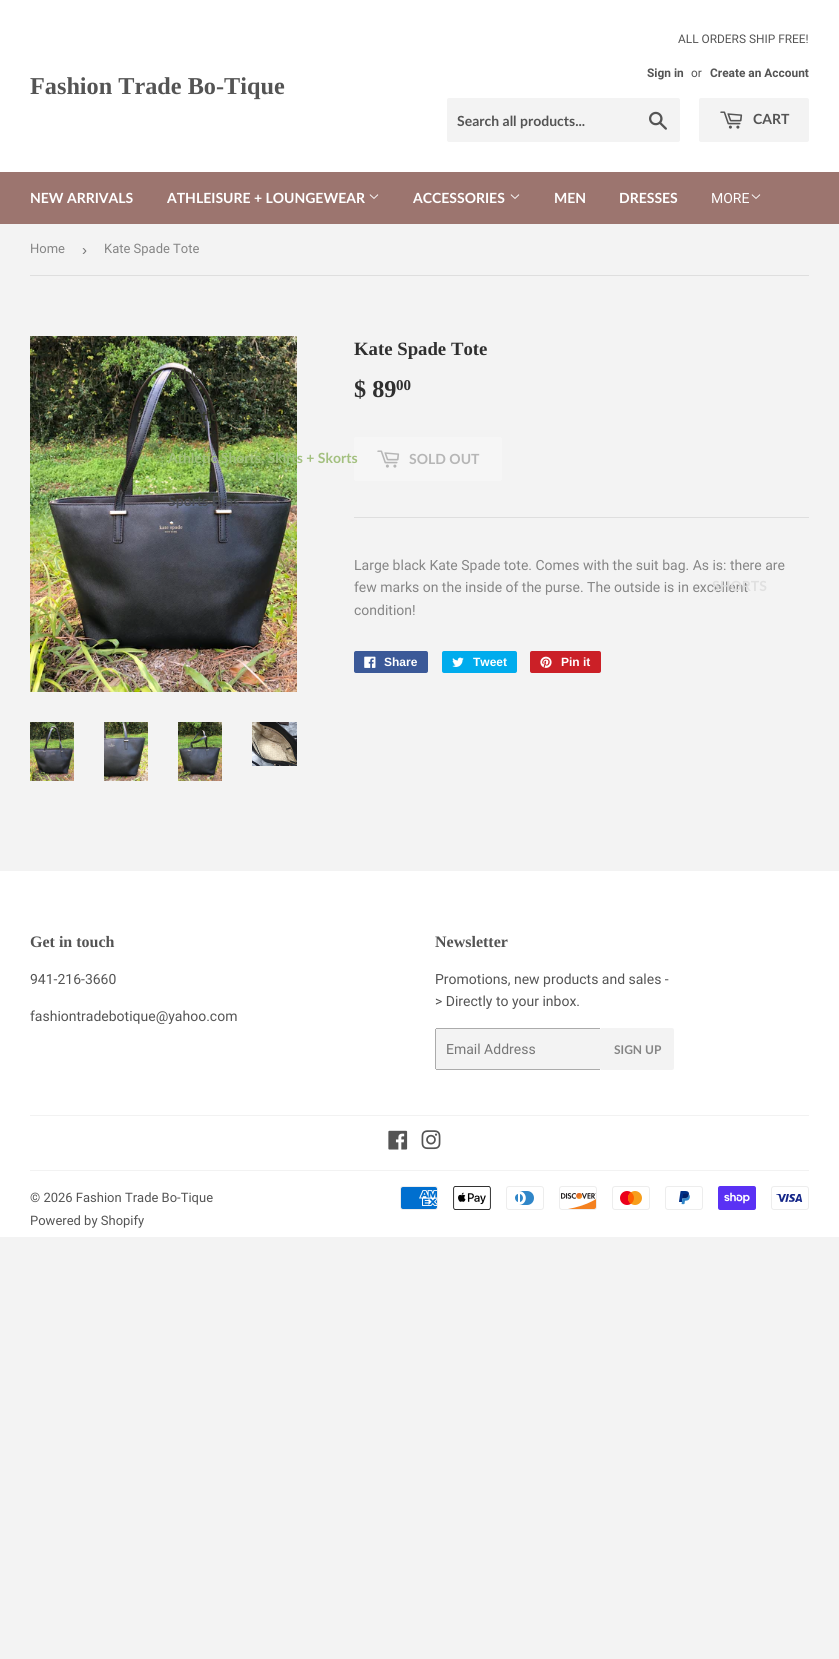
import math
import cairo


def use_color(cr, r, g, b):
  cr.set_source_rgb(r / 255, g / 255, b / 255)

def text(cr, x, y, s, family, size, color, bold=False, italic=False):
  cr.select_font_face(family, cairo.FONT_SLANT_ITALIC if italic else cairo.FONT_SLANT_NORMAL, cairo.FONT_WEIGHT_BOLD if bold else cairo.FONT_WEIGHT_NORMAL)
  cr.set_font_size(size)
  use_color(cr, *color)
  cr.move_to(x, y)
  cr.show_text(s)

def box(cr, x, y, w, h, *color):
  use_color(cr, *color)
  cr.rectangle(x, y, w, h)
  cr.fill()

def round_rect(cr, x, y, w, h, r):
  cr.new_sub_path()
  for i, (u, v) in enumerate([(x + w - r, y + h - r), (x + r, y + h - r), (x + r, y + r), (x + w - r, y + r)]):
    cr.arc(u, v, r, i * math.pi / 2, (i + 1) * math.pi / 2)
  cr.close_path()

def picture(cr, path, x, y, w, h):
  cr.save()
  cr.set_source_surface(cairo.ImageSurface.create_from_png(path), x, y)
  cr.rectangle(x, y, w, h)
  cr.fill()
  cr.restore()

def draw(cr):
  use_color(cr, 243, 243, 243)
  cr.paint()
  box(cr, 0, 0, 839, 172, 255, 255, 255)
  use_color(cr, 243, 243, 243)
  round_rect(cr, 447, 98, 233, 44, 2)
  cr.fill()
  picture(cr, "img_01.png", 649, 111, 18, 19)
  round_rect(cr, 699, 98, 110, 44, 2)
  cr.fill()
  picture(cr, "img_02.png", 720, 111, 23, 18)
  box(cr, 0, 172, 839, 52, 156, 117, 111)
  picture(cr, "img_03.png", 369, 194, 10, 5)
  picture(cr, "img_03.png", 510, 194, 10, 5)
  picture(cr, "img_03.png", 751, 194, 10, 5)
  box(cr, 30, 275, 779, 1, 222, 222, 222)
  picture(cr, "img_04.png", 30, 336, 267, 356)
  picture(cr, "img_05.png", 30, 722, 44, 59)
  picture(cr, "img_06.png", 104, 722, 44, 59)
  picture(cr, "img_07.png", 178, 722, 44, 59)
  picture(cr, "img_08.png", 252, 722, 45, 44)
  use_color(cr, 246, 246, 246)
  round_rect(cr, 354, 437, 148, 44, 2)
  cr.fill()
  picture(cr, "img_09.png", 377, 450, 23, 18)
  box(cr, 354, 517, 455, 1, 222, 222, 222)
  use_color(cr, 59, 89, 152)
  round_rect(cr, 354, 651, 74, 22, 2)
  cr.fill()
  picture(cr, "img_10.png", 364, 656, 12, 12)
  use_color(cr, 0, 172, 237)
  round_rect(cr, 442, 651, 75, 22, 2)
  cr.fill()
  picture(cr, "img_11.png", 452, 657, 12, 10)
  use_color(cr, 203, 32, 39)
  round_rect(cr, 530, 651, 71, 22, 2)
  cr.fill()
  picture(cr, "img_12.png", 540, 656, 12, 12)
  box(cr, 0, 871, 839, 366, 255, 255, 255)
  use_color(cr, 243, 243, 243)
  round_rect(cr, 435, 1028, 166, 42, 2)
  cr.fill()
  box(cr, 436, 1028, 164, 1, 171, 171, 171)
  box(cr, 436, 1069, 164, 1, 171, 171, 171)
  box(cr, 435, 1029, 1, 40, 171, 171, 171)
  use_color(cr, 243, 243, 243)
  cr.new_path()
  cr.move_to(601, 1028)
  cr.line_to(672, 1028)
  cr.curve_to(673, 1028, 674, 1029, 674, 1030)
  cr.line_to(674, 1068)
  cr.curve_to(674, 1069, 673, 1070, 672, 1070)
  cr.line_to(601, 1070)
  cr.close_path()
  cr.fill()
  box(cr, 30, 1115, 779, 1, 242, 242, 242)
  picture(cr, "img_13.png", 388, 1130, 20, 20)
  picture(cr, "img_14.png", 421, 1130, 20, 20)
  box(cr, 30, 1170, 779, 1, 242, 242, 242)
  picture(cr, "img_15.png", 400, 1186, 38, 24)
  picture(cr, "img_16.png", 453, 1186, 38, 24)
  picture(cr, "img_17.png", 506, 1186, 38, 24)
  picture(cr, "img_18.png", 559, 1186, 38, 24)
  picture(cr, "img_19.png", 612, 1186, 38, 24)
  picture(cr, "img_20.png", 665, 1186, 38, 24)
  picture(cr, "img_21.png", 718, 1186, 38, 24)
  picture(cr, "img_22.png", 771, 1186, 38, 24)
  text(cr, 30, 94, "Fashion Trade Bo-Tique", "Liberation Serif", 24.25, (84, 84, 84), bold=True)
  text(cr, 678, 43, "ALL ORDERS SHIP FREE!", "Roboto", 11.9, (84, 84, 84))
  text(cr, 647, 77, "Sign in", "Roboto", 11.9, (84, 84, 84), bold=True)
  text(cr, 691, 77, "or", "Roboto", 11.9, (84, 84, 84))
  text(cr, 710, 77, "Create an Account", "Roboto", 11.9, (84, 84, 84), bold=True)
  text(cr, 457, 126, "Search all products...", "Lato", 14, (84, 84, 84), bold=True)
  text(cr, 753, 124, "CART", "Lato", 14, (84, 84, 84), bold=True)
  text(cr, 30, 203, "NEW ARRIVALS", "Lato", 14, (255, 255, 255), bold=True)
  text(cr, 167, 203, "ATHLEISURE + LOUNGEWEAR", "Lato", 14, (255, 255, 255), bold=True)
  text(cr, 168, 379, "Athletic Jackets", "Lato", 14, (66, 71, 54), bold=True)
  text(cr, 168, 421, "Athletic Shoes", "Lato", 14, (51, 57, 40), bold=True)
  text(cr, 168, 463, "Athletic Shorts, Skirts + Skorts", "Lato", 14, (163, 192, 127), bold=True)
  text(cr, 168, 506, "Sports Bras", "Lato", 14, (75, 78, 84), bold=True)
  text(cr, 413, 203, "ACCESSORIES", "Lato", 14, (255, 255, 255), bold=True)
  text(cr, 554, 203, "MEN", "Lato", 14, (255, 255, 255), bold=True)
  text(cr, 619, 203, "DRESSES", "Lato", 14, (255, 255, 255), bold=True)
  text(cr, 711, 203, "MORE", "Roboto", 14, (255, 255, 255))
  text(cr, 30, 253, "Home", "Roboto", 13, (133, 133, 133))
  text(cr, 82, 255, "›", "Liberation Sans", 15, (118, 118, 118))
  text(cr, 104, 253, "Kate Spade Tote", "Roboto", 13, (133, 133, 133))
  text(cr, 354, 355, "Kate Spade Tote", "Liberation Serif", 18.75, (47, 47, 47), bold=True)
  text(cr, 354, 397, "$ 89", "Liberation Serif", 24.25, (47, 47, 47), bold=True)
  text(cr, 396, 390, "00", "Liberation Serif", 15, (47, 47, 47), bold=True)
  text(cr, 409, 464, "SOLD OUT", "Lato", 14, (182, 182, 182), bold=True)
  text(cr, 354, 570, "Large black Kate Spade tote. Comes with the suit bag. As is: there are", "Roboto", 14, (133, 133, 133))
  text(cr, 354, 592, "few marks on the inside of the purse. The outside is in excellent", "Roboto", 14, (133, 133, 133))
  text(cr, 712, 591, "SHORTS", "Lato", 14, (224, 224, 224), bold=True)
  text(cr, 354, 615, "condition!", "Roboto", 14, (133, 133, 133))
  text(cr, 384, 666, "Share", "Liberation Sans", 12, (255, 255, 255), bold=True)
  text(cr, 473, 666, "Tweet", "Liberation Sans", 12, (255, 255, 255), bold=True)
  text(cr, 561, 666, "Pin it", "Liberation Sans", 12, (255, 255, 255), bold=True)
  text(cr, 30, 947, "Get in touch", "Liberation Serif", 16, (84, 84, 84), bold=True)
  text(cr, 30, 984, "941-216-3660", "Roboto", 14, (84, 84, 84))
  text(cr, 30, 1021, "fashiontradebotique@yahoo.com", "Roboto", 14, (84, 84, 84))
  text(cr, 435, 947, "Newsletter", "Liberation Serif", 16, (84, 84, 84), bold=True)
  text(cr, 435, 984, "Promotions, new products and sales -", "Roboto", 14, (84, 84, 84))
  text(cr, 435, 1006, "> Directly to your inbox.", "Roboto", 14, (84, 84, 84))
  text(cr, 446, 1054, "Email Address", "Roboto", 14, (118, 118, 118))
  text(cr, 614, 1054, "SIGN UP", "Lato", 12, (133, 133, 133), bold=True)
  text(cr, 30, 1202, "© 2026 Fashion Trade Bo-Tique", "Roboto", 13, (84, 84, 84))
  text(cr, 30, 1225, "Powered by Shopify", "Roboto", 13, (84, 84, 84))


surface = cairo.ImageSurface(cairo.FORMAT_RGB24, 839, 1659)
cr = cairo.Context(surface)
options = cairo.FontOptions()
options.set_hint_metrics(cairo.HINT_METRICS_OFF)
options.set_hint_style(cairo.HINT_STYLE_NONE)
cr.set_font_options(options)
cr.set_miter_limit(4)
draw(cr)
surface.write_to_png("out.png")
